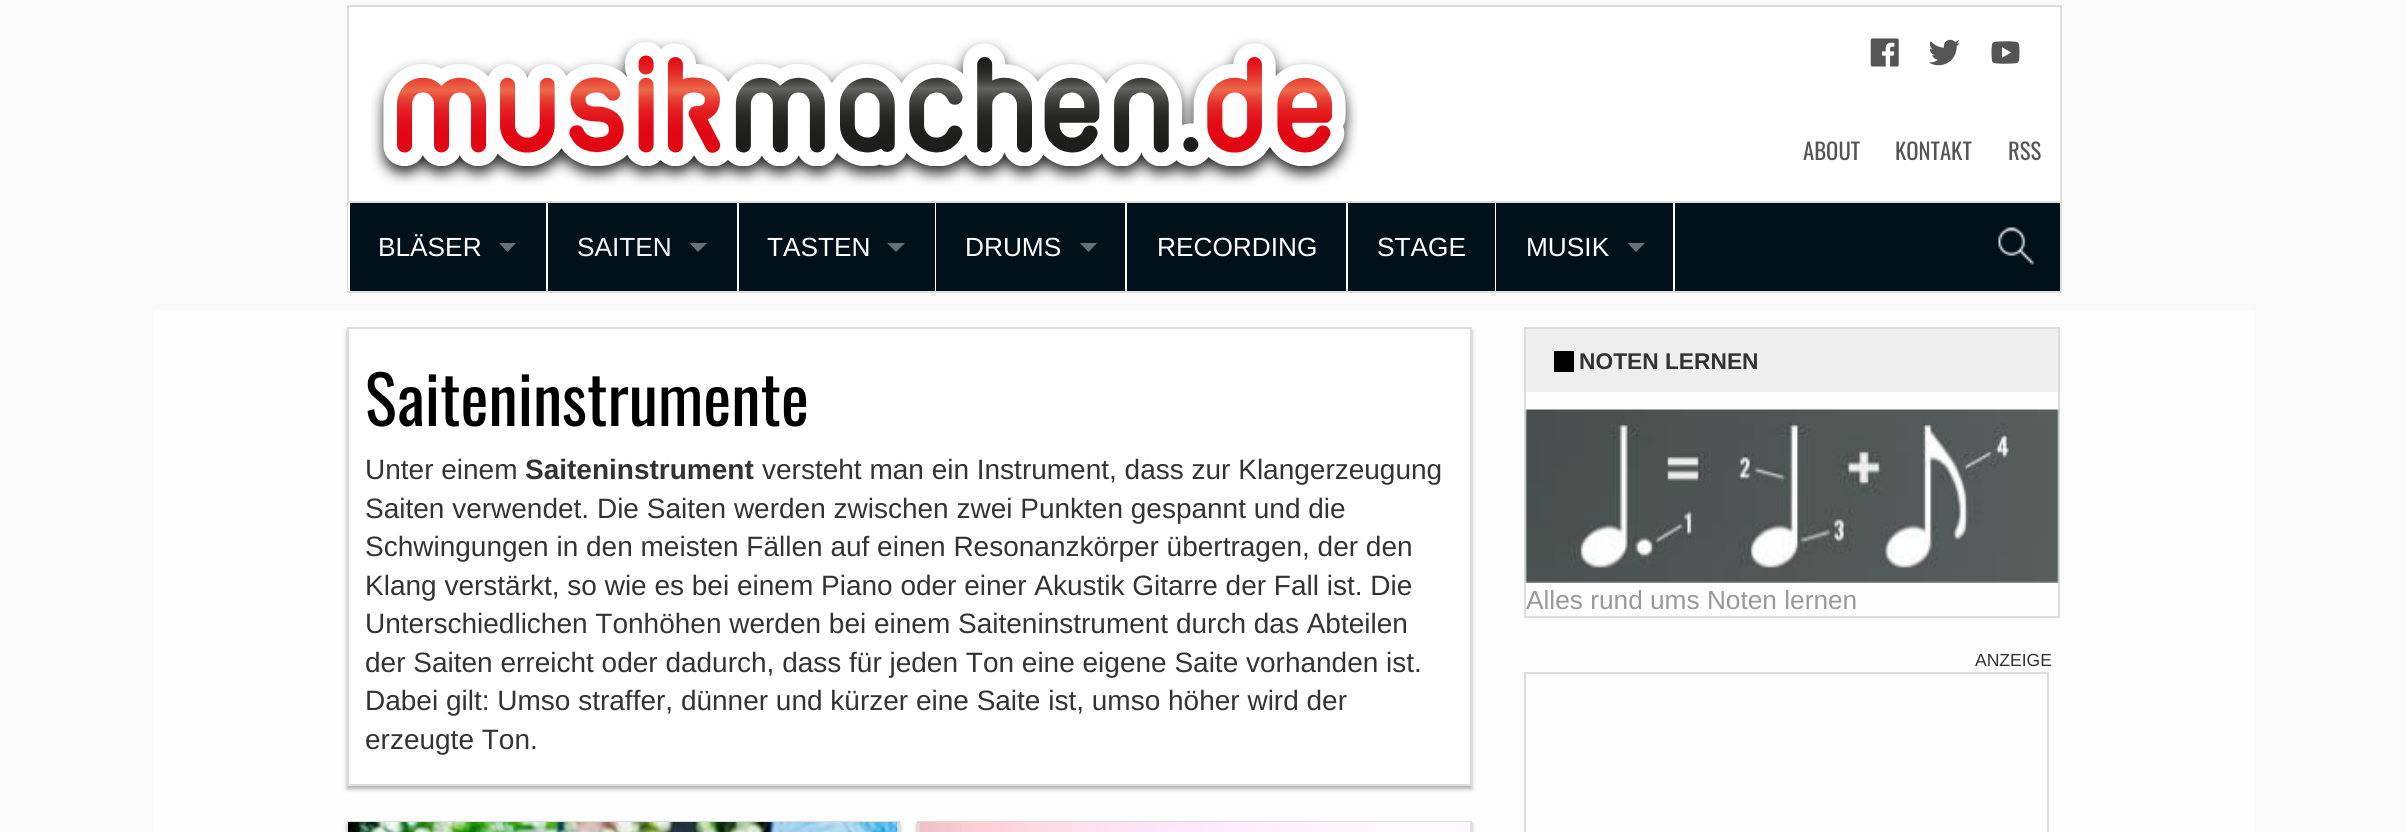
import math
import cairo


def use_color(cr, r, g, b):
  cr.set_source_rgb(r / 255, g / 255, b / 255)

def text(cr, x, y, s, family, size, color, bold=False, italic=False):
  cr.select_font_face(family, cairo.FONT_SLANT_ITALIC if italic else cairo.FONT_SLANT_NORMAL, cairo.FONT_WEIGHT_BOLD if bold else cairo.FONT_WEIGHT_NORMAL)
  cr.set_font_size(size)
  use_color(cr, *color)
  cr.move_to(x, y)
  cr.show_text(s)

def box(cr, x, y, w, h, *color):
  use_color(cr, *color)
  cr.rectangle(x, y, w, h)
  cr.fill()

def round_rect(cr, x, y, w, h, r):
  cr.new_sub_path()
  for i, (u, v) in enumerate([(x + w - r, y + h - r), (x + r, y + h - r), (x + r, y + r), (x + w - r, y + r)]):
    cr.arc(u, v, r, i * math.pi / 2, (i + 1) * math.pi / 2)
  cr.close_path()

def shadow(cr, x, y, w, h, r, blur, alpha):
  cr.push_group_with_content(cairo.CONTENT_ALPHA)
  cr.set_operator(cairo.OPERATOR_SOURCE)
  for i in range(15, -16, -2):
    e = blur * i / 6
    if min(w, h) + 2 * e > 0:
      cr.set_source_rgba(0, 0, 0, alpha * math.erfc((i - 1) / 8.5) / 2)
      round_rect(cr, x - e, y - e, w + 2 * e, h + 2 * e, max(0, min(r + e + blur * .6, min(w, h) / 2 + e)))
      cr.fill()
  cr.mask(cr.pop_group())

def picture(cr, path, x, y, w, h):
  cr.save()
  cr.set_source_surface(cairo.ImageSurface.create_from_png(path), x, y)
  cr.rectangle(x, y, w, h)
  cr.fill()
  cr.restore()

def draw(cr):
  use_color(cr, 250, 250, 250)
  cr.paint()
  use_color(cr, 255, 255, 255)
  cr.rectangle(348, 6, 1713, 196)
  cr.fill_preserve()
  use_color(cr, 221, 221, 221)
  cr.stroke()
  picture(cr, "img_01.png", 371, 37, 987, 149)
  picture(cr, "img_02.png", 1870, 38, 29, 29)
  picture(cr, "img_03.png", 1928, 39, 32, 27)
  picture(cr, "img_04.png", 1991, 41, 29, 23)
  box(cr, 350, 203, 1710, 88, 0, 17, 26)
  box(cr, 2060, 203, 2, 89, 221, 221, 221)
  box(cr, 347, 291, 1715, 2, 221, 221, 221)
  box(cr, 347, 203, 2, 89, 221, 221, 221)
  box(cr, 348, 203, 2, 88, 255, 255, 255)
  use_color(cr, 102, 112, 118)
  cr.new_path()
  cr.move_to(499, 243)
  cr.line_to(516, 243)
  cr.line_to(507.5, 252)
  cr.close_path()
  cr.fill()
  box(cr, 546, 203, 2, 88, 255, 255, 255)
  use_color(cr, 102, 112, 118)
  cr.new_path()
  cr.move_to(689.5, 243)
  cr.line_to(707, 243)
  cr.line_to(698, 252)
  cr.close_path()
  cr.fill()
  box(cr, 737, 203, 2, 88, 255, 255, 255)
  use_color(cr, 102, 112, 118)
  cr.new_path()
  cr.move_to(887, 243)
  cr.line_to(905, 243)
  cr.line_to(896, 252)
  cr.close_path()
  cr.fill()
  box(cr, 935, 203, 1, 88, 255, 255, 255)
  use_color(cr, 102, 112, 118)
  cr.new_path()
  cr.move_to(1080, 243)
  cr.line_to(1097, 243)
  cr.line_to(1088.5, 252)
  cr.close_path()
  cr.fill()
  box(cr, 1125, 203, 2, 88, 255, 255, 255)
  box(cr, 1346, 203, 2, 88, 255, 255, 255)
  box(cr, 1495, 203, 1, 88, 255, 255, 255)
  use_color(cr, 102, 112, 118)
  cr.new_path()
  cr.move_to(1627.5, 243)
  cr.line_to(1645, 243)
  cr.line_to(1636, 252)
  cr.close_path()
  cr.fill()
  box(cr, 1673, 203, 2, 88, 255, 255, 255)
  picture(cr, "img_05.png", 1998, 227, 36, 38)
  box(cr, 154, 310, 2100, 522, 253, 253, 253)
  use_color(cr, 0, 0, 0)
  shadow(cr, 347, 331, 1125, 458, 0, 2, 0.3)
  use_color(cr, 255, 255, 255)
  cr.rectangle(348, 328, 1123, 457)
  cr.fill_preserve()
  use_color(cr, 221, 221, 221)
  cr.stroke()
  use_color(cr, 0, 0, 0)
  shadow(cr, 347, 824, 553, 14, 0, 2, 0.3)
  box(cr, 897, 823, 1, 9, 255, 255, 255)
  cr.rectangle(348, 822, 551, 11)
  use_color(cr, 221, 221, 221)
  cr.stroke()
  picture(cr, "img_06.png", 348, 822, 551, 10)
  use_color(cr, 0, 0, 0)
  shadow(cr, 917, 824, 555, 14, 0, 2, 0.3)
  use_color(cr, 255, 255, 255)
  cr.rectangle(918, 822, 553, 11)
  cr.fill_preserve()
  use_color(cr, 221, 221, 221)
  cr.stroke()
  picture(cr, "img_07.png", 918, 822, 552, 10)
  cr.rectangle(1525, 328, 534, 289)
  cr.stroke()
  box(cr, 1526, 329, 532, 63, 238, 238, 238)
  box(cr, 1554, 351, 20, 21, 0, 0, 0)
  picture(cr, "img_08.png", 1525, 409, 534, 174)
  cr.rectangle(1525, 673, 523, 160)
  use_color(cr, 221, 221, 221)
  cr.stroke()
  text(cr, 1803, 160, "ABOUT", "Oswald", 22.75, (85, 85, 85))
  text(cr, 1895, 160, "KONTAKT", "Oswald", 22.75, (85, 85, 85))
  text(cr, 2008, 160, "RSS", "Oswald", 22.75, (85, 85, 85))
  text(cr, 378, 256, "BLÄSER", "Liberation Sans", 26.25, (255, 255, 255))
  text(cr, 577, 256, "SAITEN", "Liberation Sans", 26.25, (245, 245, 245))
  text(cr, 767, 256, "TASTEN", "Liberation Sans", 26.25, (255, 255, 255))
  text(cr, 965, 256, "DRUMS", "Liberation Sans", 26.25, (255, 255, 255))
  text(cr, 1157, 256, "RECORDING", "Liberation Sans", 26.25, (255, 255, 255))
  text(cr, 1377, 256, "STAGE", "Liberation Sans", 26.25, (255, 255, 255))
  text(cr, 1526, 256, "MUSIK", "Liberation Sans", 26.25, (255, 255, 255))
  text(cr, 365, 426, "Saiteninstrumente", "Oswald", 66.5, (0, 0, 0))
  text(cr, 365, 479, "Unter einem", "Liberation Sans", 28, (51, 51, 51))
  text(cr, 525, 479, "Saiteninstrument", "Liberation Sans", 28, (51, 51, 51), bold=True)
  text(cr, 762, 479, "versteht man ein Instrument, dass zur Klangerzeugung", "Liberation Sans", 28, (51, 51, 51))
  text(cr, 365, 518, "Saiten verwendet. Die Saiten werden zwischen zwei Punkten gespannt und die", "Liberation Sans", 28, (51, 51, 51))
  text(cr, 365, 556, "Schwingungen in den meisten Fällen auf einen Resonanzkörper übertragen, der den", "Liberation Sans", 28, (51, 51, 51))
  text(cr, 365, 595, "Klang verstärkt, so wie es bei einem Piano oder einer Akustik Gitarre der Fall ist. Die", "Liberation Sans", 28, (51, 51, 51))
  text(cr, 365, 633, "Unterschiedlichen Tonhöhen werden bei einem Saiteninstrument durch das Abteilen", "Liberation Sans", 28, (51, 51, 51))
  text(cr, 365, 672, "der Saiten erreicht oder dadurch, dass für jeden Ton eine eigene Saite vorhanden ist.", "Liberation Sans", 28, (51, 51, 51))
  text(cr, 365, 710, "Dabei gilt: Umso straffer, dünner und kürzer eine Saite ist, umso höher wird der", "Liberation Sans", 28, (51, 51, 51))
  text(cr, 365, 749, "erzeugte Ton.", "Liberation Sans", 28, (51, 51, 51))
  text(cr, 1579, 369, "NOTEN LERNEN", "Liberation Sans", 22.75, (51, 51, 51), bold=True)
  text(cr, 1526, 609, "Alles rund ums Noten lernen", "Liberation Sans", 26.25, (153, 153, 153))
  text(cr, 1975, 666, "ANZEIGE", "Liberation Sans", 17.5, (51, 51, 51))


surface = cairo.ImageSurface(cairo.FORMAT_RGB24, 2405, 832)
cr = cairo.Context(surface)
options = cairo.FontOptions()
options.set_hint_metrics(cairo.HINT_METRICS_OFF)
options.set_hint_style(cairo.HINT_STYLE_NONE)
cr.set_font_options(options)
cr.set_miter_limit(4)
draw(cr)
surface.write_to_png("out.png")
